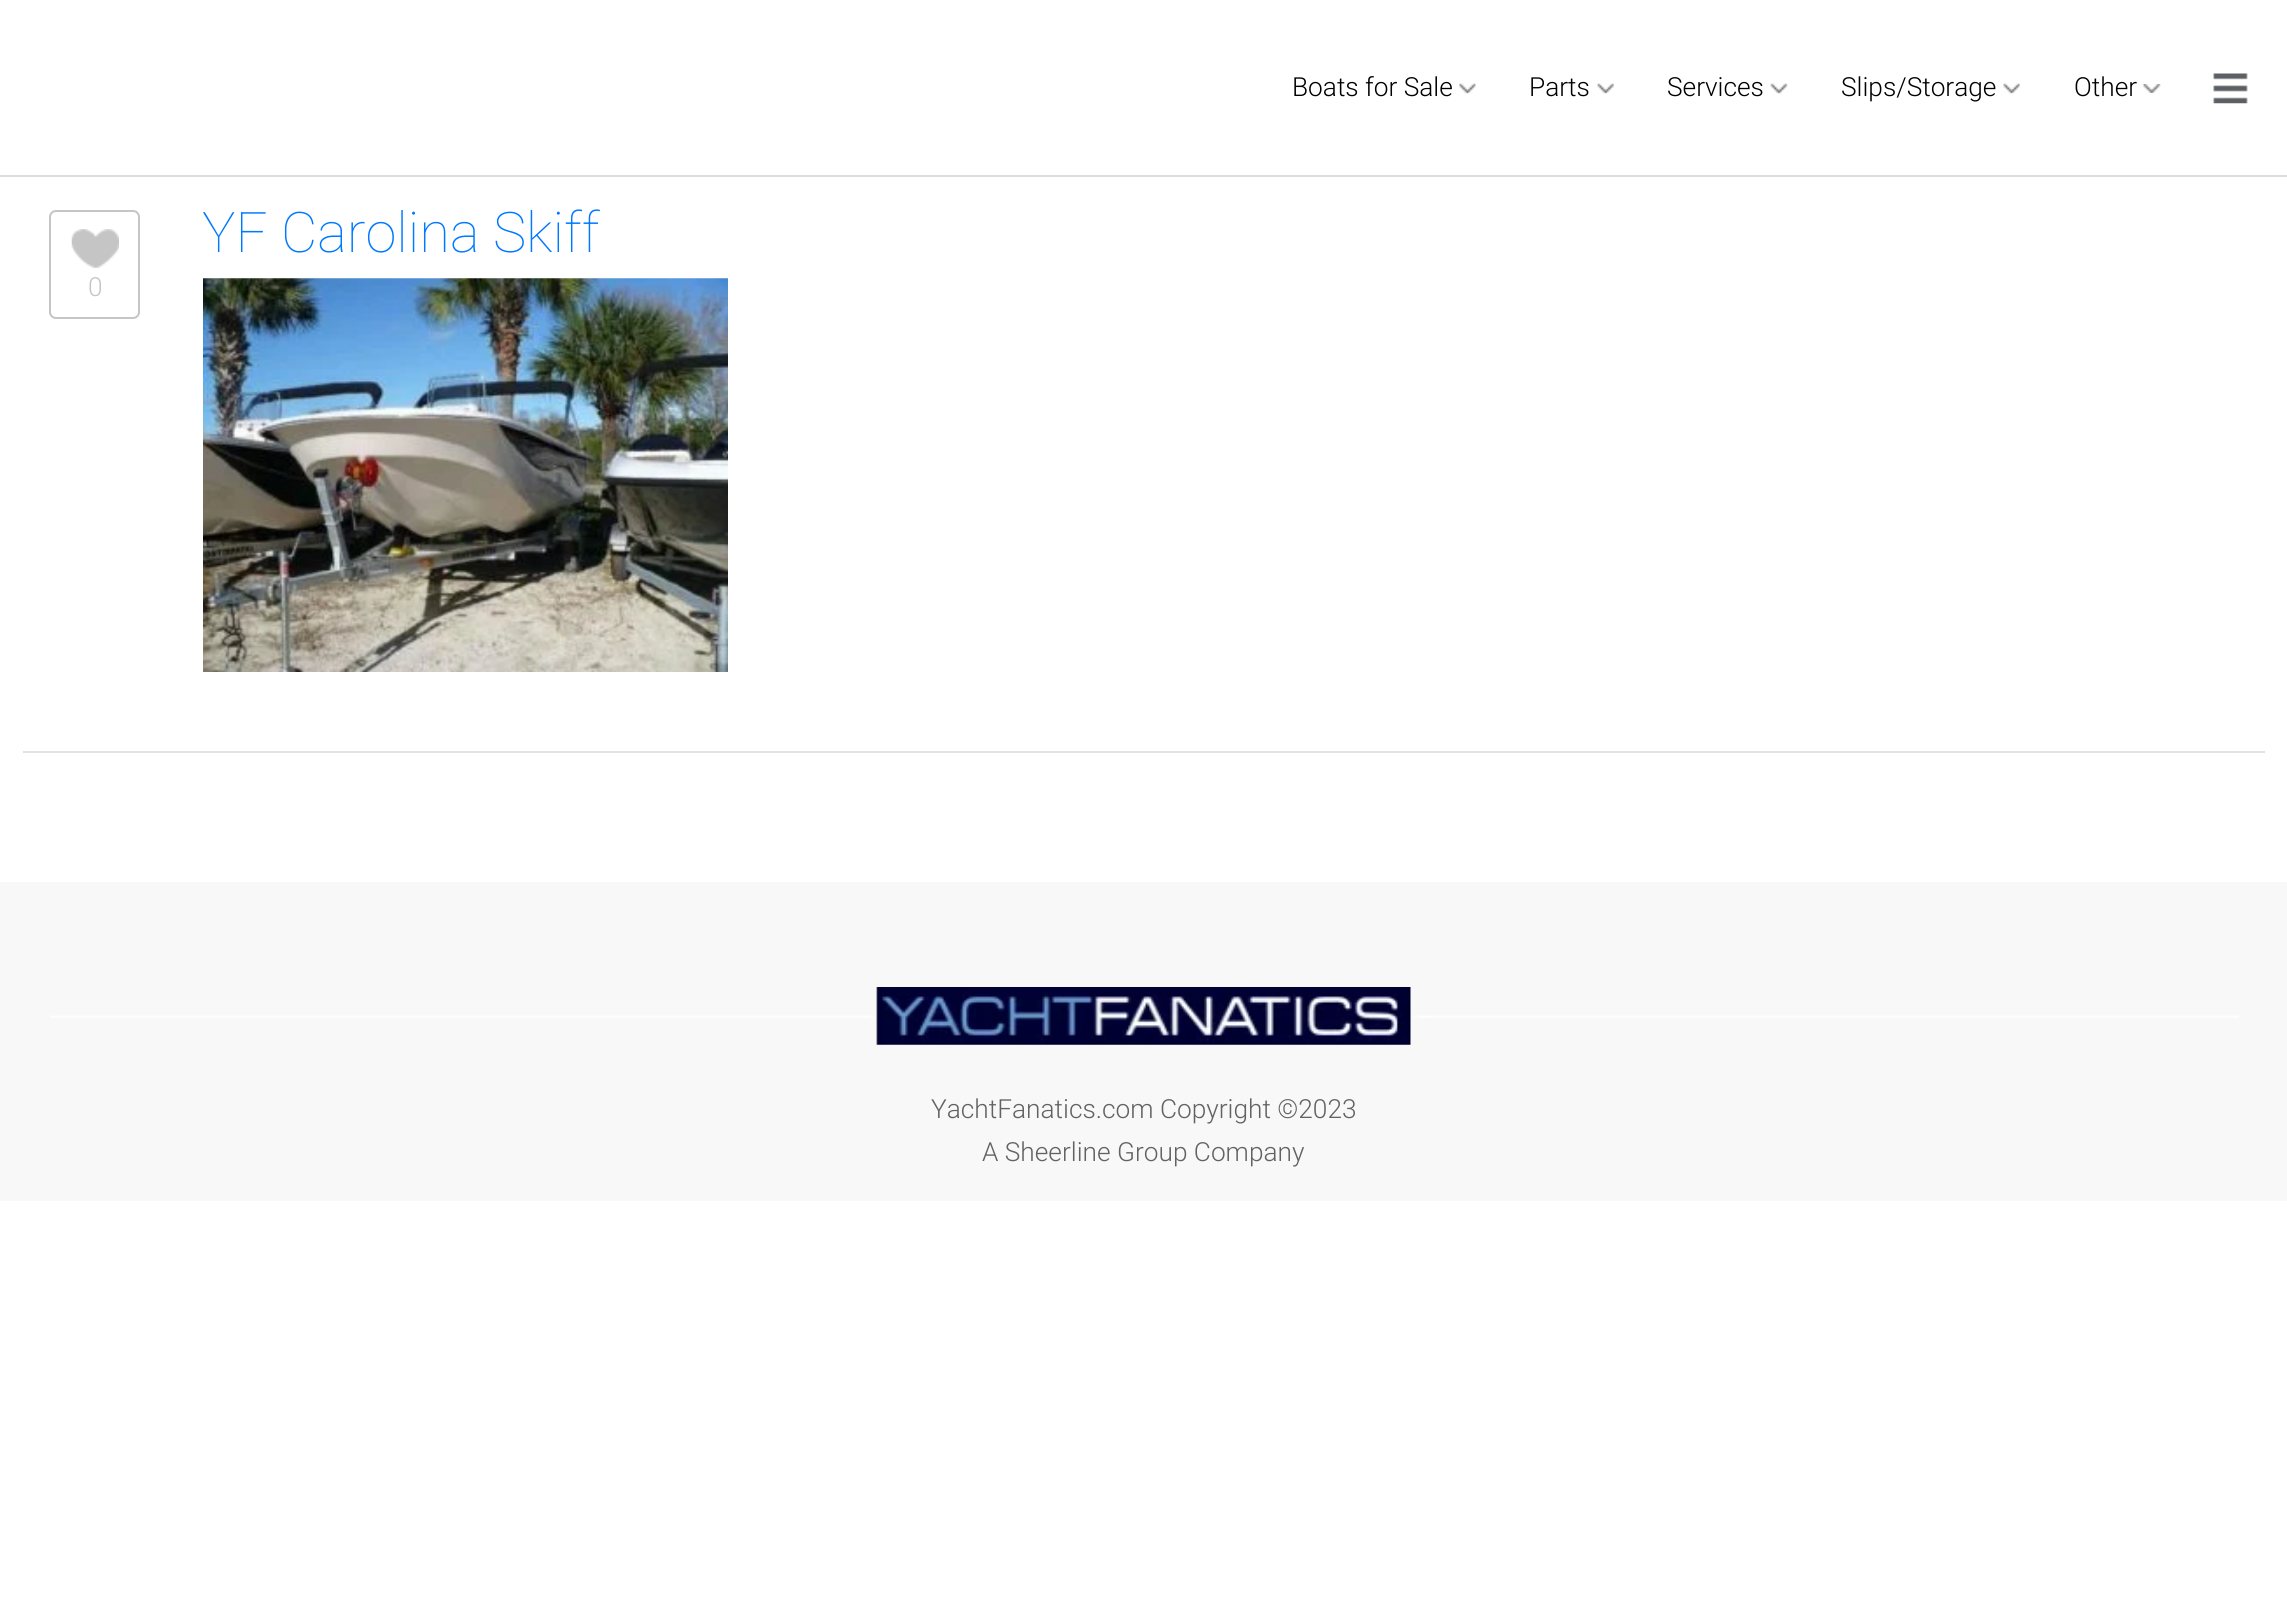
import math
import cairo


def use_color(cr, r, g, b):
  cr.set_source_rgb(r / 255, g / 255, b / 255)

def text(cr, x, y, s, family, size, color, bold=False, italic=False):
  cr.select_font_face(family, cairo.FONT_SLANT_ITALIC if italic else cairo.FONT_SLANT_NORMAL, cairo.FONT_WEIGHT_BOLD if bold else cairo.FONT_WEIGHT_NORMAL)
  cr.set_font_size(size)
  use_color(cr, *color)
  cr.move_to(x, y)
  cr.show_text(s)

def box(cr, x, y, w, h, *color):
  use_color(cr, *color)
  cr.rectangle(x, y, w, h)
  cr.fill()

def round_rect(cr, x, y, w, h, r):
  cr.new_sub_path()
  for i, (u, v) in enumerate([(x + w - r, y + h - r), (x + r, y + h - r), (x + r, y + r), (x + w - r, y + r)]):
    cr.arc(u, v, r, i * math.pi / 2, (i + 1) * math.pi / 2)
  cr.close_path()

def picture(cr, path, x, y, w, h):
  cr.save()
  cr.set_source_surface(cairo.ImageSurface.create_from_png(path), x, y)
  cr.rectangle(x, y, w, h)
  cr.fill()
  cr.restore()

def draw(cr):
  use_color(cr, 255, 255, 255)
  cr.paint()
  box(cr, 0, 175, 2287, 2, 221, 221, 221)
  picture(cr, "img_01.png", 1459, 83, 17, 11)
  picture(cr, "img_02.png", 1597, 83, 17, 11)
  picture(cr, "img_03.png", 1770, 83, 18, 11)
  picture(cr, "img_04.png", 2003, 83, 17, 11)
  picture(cr, "img_05.png", 2143, 84, 18, 9)
  picture(cr, "img_06.png", 2213, 73, 35, 31)
  box(cr, 23, 751, 2242, 2, 225, 228, 230)
  picture(cr, "img_07.png", 203, 278, 525, 394)
  round_rect(cr, 50, 211, 89, 107, 6)
  use_color(cr, 197, 197, 197)
  cr.stroke()
  picture(cr, "img_08.png", 71, 229, 48, 39)
  box(cr, 0, 882, 2287, 319, 248, 248, 248)
  picture(cr, "img_09.png", 50, 987, 2189, 58)
  text(cr, 1292, 96, "Boats for Sale", "Roboto Light", 26.25, (0, 0, 0))
  text(cr, 1529, 96, "Parts", "Roboto Light", 26.25, (0, 0, 0))
  text(cr, 1667, 96, "Services", "Roboto Light", 26.25, (0, 0, 0))
  text(cr, 1841, 96, "Slips/Storage", "Roboto Light", 26.25, (0, 0, 0))
  text(cr, 2074, 96, "Other", "Roboto Light", 26.25, (0, 0, 0))
  text(cr, 202, 252, "YF Carolina Skiff", "Roboto Thin", 56, (0, 121, 255))
  text(cr, 88, 296, "0", "Roboto Light", 26.25, (197, 197, 197))
  text(cr, 931, 1118, "YachtFanatics.com Copyright ©2023", "Roboto Light", 26.25, (98, 98, 98))
  text(cr, 982, 1161, "A Sheerline Group Company", "Roboto Light", 26.25, (98, 98, 98))


surface = cairo.ImageSurface(cairo.FORMAT_RGB24, 2287, 1619)
cr = cairo.Context(surface)
options = cairo.FontOptions()
options.set_hint_metrics(cairo.HINT_METRICS_OFF)
options.set_hint_style(cairo.HINT_STYLE_NONE)
cr.set_font_options(options)
cr.set_miter_limit(4)
draw(cr)
surface.write_to_png("out.png")
